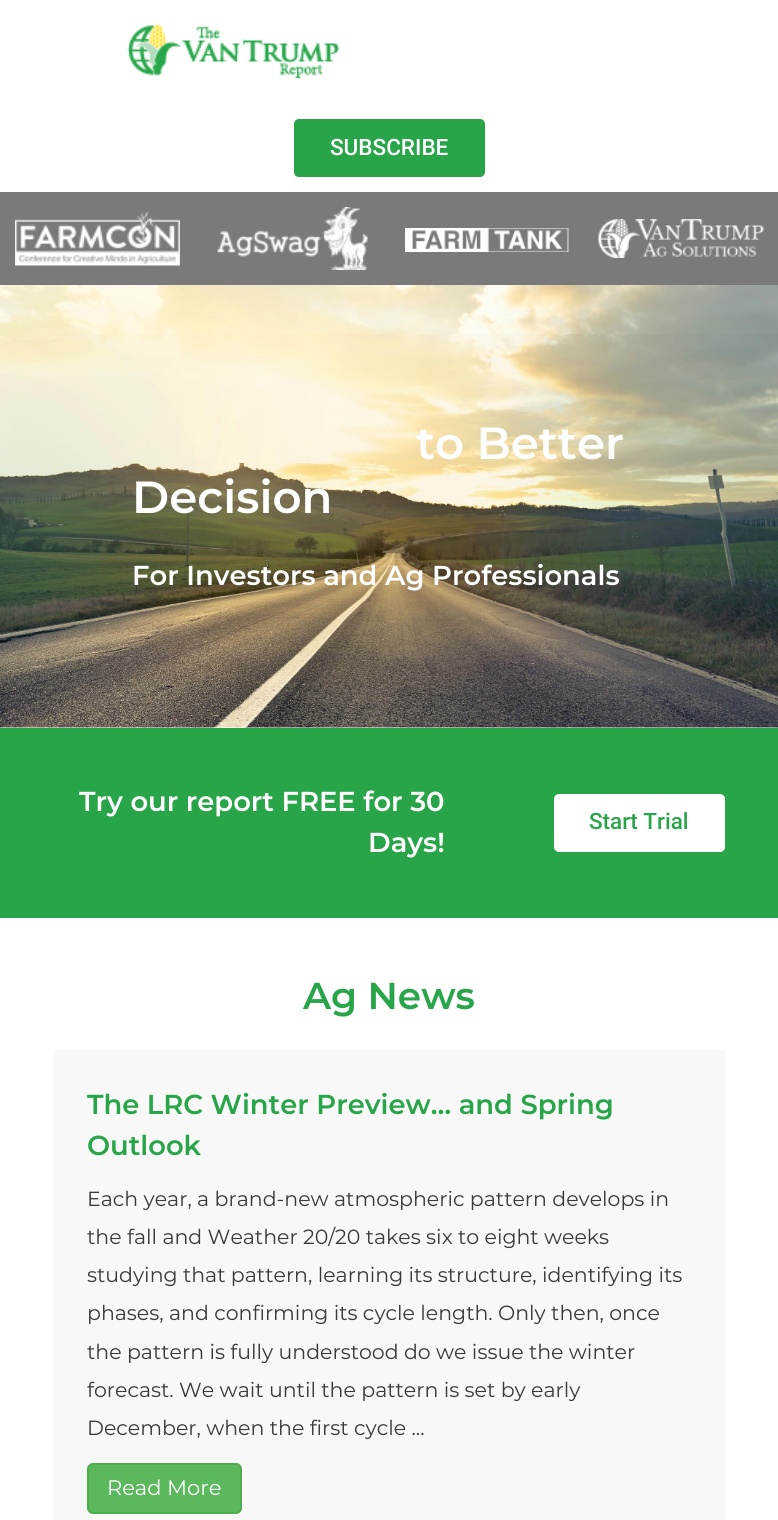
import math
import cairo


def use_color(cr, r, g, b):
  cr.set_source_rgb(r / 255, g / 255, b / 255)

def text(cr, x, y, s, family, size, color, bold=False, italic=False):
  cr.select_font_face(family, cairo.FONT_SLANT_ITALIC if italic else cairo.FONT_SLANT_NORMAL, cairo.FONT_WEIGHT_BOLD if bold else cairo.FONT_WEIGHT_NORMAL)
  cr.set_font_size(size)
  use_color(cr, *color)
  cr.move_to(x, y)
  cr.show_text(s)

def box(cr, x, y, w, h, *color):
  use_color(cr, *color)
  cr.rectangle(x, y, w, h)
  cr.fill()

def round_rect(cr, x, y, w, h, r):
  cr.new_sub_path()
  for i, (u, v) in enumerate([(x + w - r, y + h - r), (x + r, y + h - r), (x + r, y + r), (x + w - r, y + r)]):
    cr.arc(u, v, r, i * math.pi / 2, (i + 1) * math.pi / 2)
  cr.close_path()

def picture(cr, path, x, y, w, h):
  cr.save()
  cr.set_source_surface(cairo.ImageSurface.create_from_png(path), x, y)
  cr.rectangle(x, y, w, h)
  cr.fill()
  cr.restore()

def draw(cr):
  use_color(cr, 255, 255, 255)
  cr.paint()
  picture(cr, "img_01.png", 127, 23, 213, 56)
  use_color(cr, 41, 165, 73)
  round_rect(cr, 294, 119, 191, 58, 5)
  cr.fill()
  box(cr, 0, 192, 778, 93, 122, 122, 122)
  picture(cr, "img_02.png", 15, 211, 165, 55)
  picture(cr, "img_03.png", 217, 207, 151, 63)
  picture(cr, "img_04.png", 405, 228, 164, 24)
  picture(cr, "img_05.png", 598, 219, 166, 39)
  picture(cr, "img_06.png", 0, 285, 778, 443)
  box(cr, 0, 728, 778, 190, 41, 165, 73)
  use_color(cr, 255, 255, 255)
  round_rect(cr, 554, 794, 171, 58, 5)
  cr.fill()
  box(cr, 54, 1050, 671, 470, 248, 248, 248)
  use_color(cr, 92, 184, 92)
  round_rect(cr, 88, 1464, 153, 49, 5)
  cr.fill_preserve()
  use_color(cr, 76, 174, 76)
  cr.stroke()
  text(cr, 330, 155, "SUBSCRIBE", "Roboto Medium", 22.5, (255, 255, 255))
  text(cr, 416, 459, "to Better", "Montserrat SemiBold", 45, (255, 255, 255))
  text(cr, 132, 513, "Decision", "Montserrat SemiBold", 45, (255, 255, 255))
  text(cr, 132, 585, "For Investors and Ag Professionals", "Montserrat SemiBold", 27.4, (255, 255, 255))
  text(cr, 79, 811, "Try our report FREE for 30", "Montserrat SemiBold", 27.4, (255, 255, 255))
  text(cr, 368, 852, "Days!", "Montserrat SemiBold", 27.4, (255, 255, 255))
  text(cr, 589, 829, "Start Trial", "Roboto Medium", 22.5, (41, 165, 73))
  text(cr, 303, 1009, "Ag News", "Montserrat SemiBold", 37.5, (41, 165, 73))
  text(cr, 87, 1114, "The LRC Winter Preview… and Spring", "Montserrat SemiBold", 27.4, (41, 165, 73))
  text(cr, 87, 1155, "Outlook", "Montserrat SemiBold", 27.4, (41, 165, 73))
  text(cr, 87, 1206, "Each year, a brand-new atmospheric pattern develops in", "Montserrat", 20.5, (58, 58, 58))
  text(cr, 87, 1244, "the fall and Weather 20/20 takes six to eight weeks", "Montserrat", 20.5, (58, 58, 58))
  text(cr, 87, 1282, "studying that pattern, learning its structure, identifying its", "Montserrat", 20.5, (58, 58, 58))
  text(cr, 87, 1320, "phases, and confirming its cycle length. Only then, once", "Montserrat", 20.5, (58, 58, 58))
  text(cr, 87, 1359, "the pattern is fully understood do we issue the winter", "Montserrat", 20.5, (58, 58, 58))
  text(cr, 87, 1397, "forecast. We wait until the pattern is set by early", "Montserrat", 20.5, (58, 58, 58))
  text(cr, 87, 1435, "December, when the first cycle ...", "Montserrat", 20.5, (58, 58, 58))
  text(cr, 107, 1495, "Read More", "Montserrat", 21, (255, 255, 255))


surface = cairo.ImageSurface(cairo.FORMAT_RGB24, 778, 1520)
cr = cairo.Context(surface)
options = cairo.FontOptions()
options.set_hint_metrics(cairo.HINT_METRICS_OFF)
options.set_hint_style(cairo.HINT_STYLE_NONE)
cr.set_font_options(options)
cr.set_miter_limit(4)
draw(cr)
surface.write_to_png("out.png")
